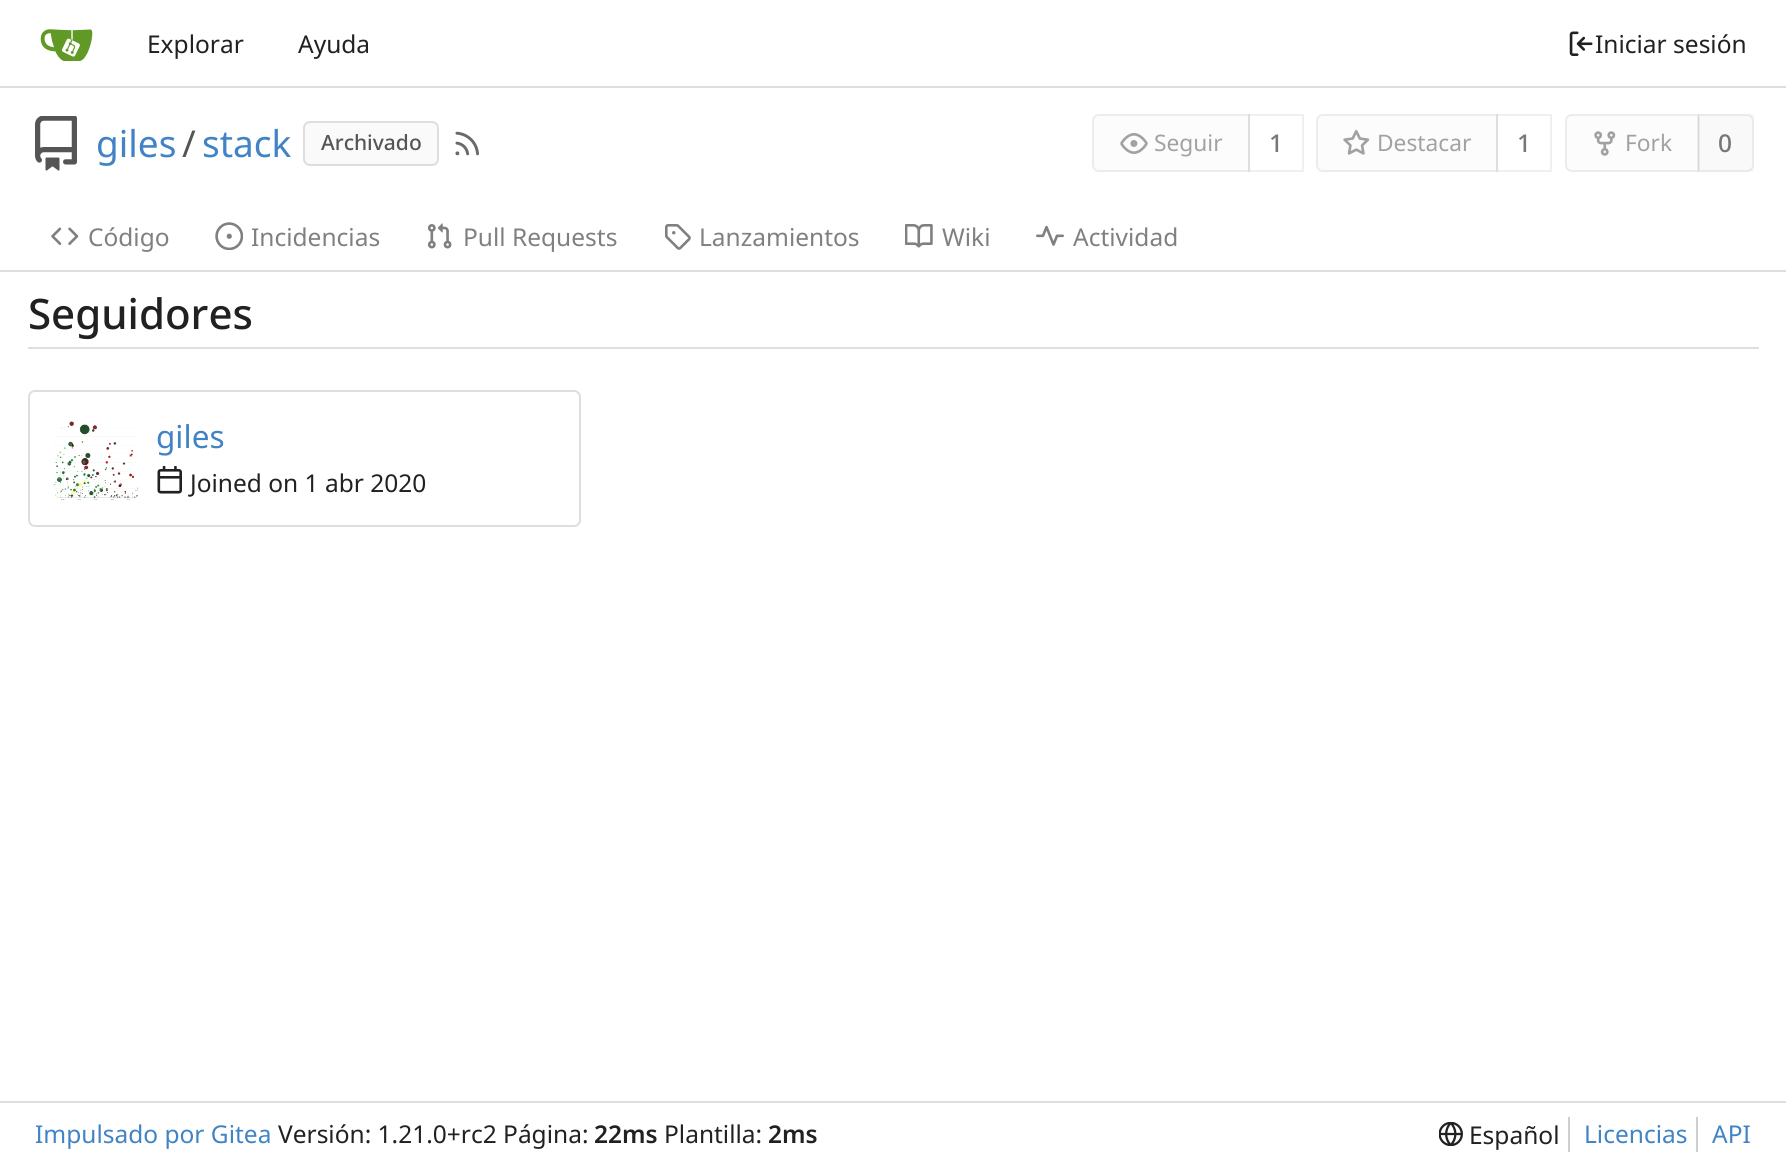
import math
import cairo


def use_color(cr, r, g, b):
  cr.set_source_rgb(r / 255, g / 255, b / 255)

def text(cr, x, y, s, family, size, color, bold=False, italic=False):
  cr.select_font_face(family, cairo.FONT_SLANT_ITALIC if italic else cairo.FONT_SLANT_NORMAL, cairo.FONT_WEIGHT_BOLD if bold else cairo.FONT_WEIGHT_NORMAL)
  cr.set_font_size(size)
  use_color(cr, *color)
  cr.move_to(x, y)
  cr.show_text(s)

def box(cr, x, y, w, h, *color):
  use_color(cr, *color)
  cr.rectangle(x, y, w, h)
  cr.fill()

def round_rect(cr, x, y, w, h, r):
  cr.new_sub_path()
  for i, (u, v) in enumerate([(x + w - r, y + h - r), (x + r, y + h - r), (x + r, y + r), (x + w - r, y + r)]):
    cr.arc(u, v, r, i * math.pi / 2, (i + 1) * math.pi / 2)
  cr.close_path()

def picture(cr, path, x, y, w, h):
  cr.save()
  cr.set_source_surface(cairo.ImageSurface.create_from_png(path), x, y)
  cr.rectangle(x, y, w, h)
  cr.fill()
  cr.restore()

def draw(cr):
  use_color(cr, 255, 255, 255)
  cr.paint()
  box(cr, 0, 86, 1786, 2, 222, 222, 222)
  picture(cr, "img_01.png", 40, 29, 53, 32)
  picture(cr, "img_02.png", 1569, 31, 24, 25)
  picture(cr, "img_03.png", 35, 116, 42, 55)
  use_color(cr, 250, 250, 250)
  round_rect(cr, 304, 122, 134, 43, 6)
  cr.fill_preserve()
  use_color(cr, 222, 222, 222)
  cr.stroke()
  picture(cr, "img_04.png", 455, 131, 24, 25)
  use_color(cr, 252, 252, 252)
  cr.new_path()
  cr.move_to(1099, 115)
  cr.line_to(1249, 115)
  cr.line_to(1249, 171)
  cr.line_to(1099, 171)
  cr.curve_to(1095.5, 171, 1093, 168.5, 1093, 165)
  cr.line_to(1093, 121)
  cr.curve_to(1093, 117.5, 1095.5, 115, 1099, 115)
  cr.close_path()
  cr.fill_preserve()
  use_color(cr, 236, 236, 236)
  cr.stroke()
  picture(cr, "img_05.png", 1120, 133, 28, 21)
  cr.rectangle(1249, 115, 54, 56)
  cr.set_source_rgba(0, 0, 0, 0.06)
  cr.stroke()
  use_color(cr, 252, 252, 252)
  cr.new_path()
  cr.move_to(1323, 115)
  cr.line_to(1497, 115)
  cr.line_to(1497, 171)
  cr.line_to(1323, 171)
  cr.curve_to(1319.5, 171, 1317, 168.5, 1317, 165)
  cr.line_to(1317, 121)
  cr.curve_to(1317, 117.5, 1319.5, 115, 1323, 115)
  cr.close_path()
  cr.fill_preserve()
  use_color(cr, 236, 236, 236)
  cr.stroke()
  picture(cr, "img_06.png", 1343, 130, 27, 25)
  cr.rectangle(1497, 115, 54, 56)
  cr.set_source_rgba(0, 0, 0, 0.06)
  cr.stroke()
  use_color(cr, 252, 252, 252)
  cr.new_path()
  cr.move_to(1572, 115)
  cr.line_to(1698, 115)
  cr.line_to(1698, 171)
  cr.line_to(1572, 171)
  cr.curve_to(1568.5, 171, 1566, 168.5, 1566, 165)
  cr.line_to(1566, 121)
  cr.curve_to(1566, 117.5, 1568.5, 115, 1572, 115)
  cr.close_path()
  cr.fill_preserve()
  use_color(cr, 236, 236, 236)
  cr.stroke()
  picture(cr, "img_07.png", 1594, 131, 22, 25)
  cr.set_source_rgba(0.451, 0.451, 0.451, 0.04)
  cr.rectangle(1698, 114, 56, 58)
  cr.fill()
  cr.new_path()
  cr.move_to(1699, 115)
  cr.line_to(1747, 115)
  cr.curve_to(1750.5, 115, 1753, 117.5, 1753, 121)
  cr.line_to(1753, 165)
  cr.curve_to(1753, 168.5, 1750.5, 171, 1747, 171)
  cr.line_to(1699, 171)
  cr.close_path()
  cr.set_source_rgba(0.451, 0.451, 0.451, 0.11)
  cr.stroke()
  picture(cr, "img_08.png", 51, 227, 28, 18)
  picture(cr, "img_09.png", 215, 222, 28, 28)
  picture(cr, "img_10.png", 427, 223, 25, 26)
  picture(cr, "img_11.png", 665, 224, 26, 26)
  picture(cr, "img_12.png", 905, 224, 28, 24)
  picture(cr, "img_13.png", 1036, 225, 28, 21)
  box(cr, 0, 270, 1786, 2, 222, 222, 222)
  box(cr, 28, 347, 1731, 2, 222, 222, 222)
  round_rect(cr, 29, 391, 551, 135, 6)
  cr.stroke()
  picture(cr, "img_14.png", 54, 421, 85, 79)
  picture(cr, "img_15.png", 157, 466, 25, 28)
  box(cr, 0, 1101, 1786, 2, 222, 222, 222)
  picture(cr, "img_16.png", 1439, 1122, 24, 24)
  box(cr, 1568, 1117, 2, 35, 206, 206, 206)
  box(cr, 1696, 1117, 2, 35, 206, 206, 206)
  text(cr, 147, 53, "Explorar", "Noto Sans", 24.5, (33, 33, 33))
  text(cr, 298, 53, "Ayuda", "Noto Sans", 24.5, (33, 33, 33))
  text(cr, 1595, 53, "Iniciar sesión", "Noto Sans", 24.5, (33, 33, 33))
  text(cr, 96, 157, "giles", "Noto Sans", 37, (65, 131, 196))
  text(cr, 182, 157, "/", "Noto Sans", 37, (85, 85, 85))
  text(cr, 202, 157, "stack", "Noto Sans", 37, (65, 131, 196))
  text(cr, 321, 150, "Archivado", "Noto Sans Medium", 21, (85, 85, 85))
  text(cr, 1154, 151, "Seguir", "Noto Sans", 22.75, (162, 162, 162))
  text(cr, 1269, 152, "1", "Noto Sans Medium", 24.5, (119, 119, 119))
  text(cr, 1377, 151, "Destacar", "Noto Sans", 22.75, (162, 162, 162))
  text(cr, 1517, 152, "1", "Noto Sans Medium", 24.5, (119, 119, 119))
  text(cr, 1625, 151, "Fork", "Noto Sans", 22.75, (162, 162, 162))
  text(cr, 1718, 152, "0", "Noto Sans Medium", 24.5, (119, 119, 119))
  text(cr, 88, 246, "Código", "Noto Sans", 24.5, (128, 128, 128))
  text(cr, 251, 246, "Incidencias", "Noto Sans", 24.5, (128, 128, 128))
  text(cr, 463, 246, "Pull Requests", "Noto Sans", 24.5, (128, 128, 128))
  text(cr, 699, 246, "Lanzamientos", "Noto Sans", 24.5, (128, 128, 128))
  text(cr, 942, 246, "Wiki", "Noto Sans", 24.5, (128, 128, 128))
  text(cr, 1073, 246, "Actividad", "Noto Sans", 24.5, (128, 128, 128))
  text(cr, 28, 329, "Seguidores", "Noto Sans Medium", 42, (33, 33, 33))
  text(cr, 156, 448, "giles", "Noto Sans", 31.5, (65, 131, 196))
  text(cr, 190, 492, "Joined on 1 abr 2020", "Noto Sans", 24.5, (33, 33, 33))
  text(cr, 35, 1143, "Impulsado por Gitea", "Noto Sans", 24.5, (65, 131, 196))
  text(cr, 278, 1143, "Versión: 1.21.0+rc2 Página:", "Noto Sans", 24.5, (33, 33, 33))
  text(cr, 594, 1143, "22ms", "Noto Sans SemiBold", 24.5, (33, 33, 33))
  text(cr, 664, 1143, "Plantilla:", "Noto Sans", 24.5, (33, 33, 33))
  text(cr, 768, 1143, "2ms", "Noto Sans SemiBold", 24.5, (33, 33, 33))
  text(cr, 1469, 1144, "Español", "Noto Sans", 24.5, (33, 33, 33))
  text(cr, 1584, 1143, "Licencias", "Noto Sans", 24.5, (65, 131, 196))
  text(cr, 1712, 1143, "API", "Noto Sans", 24.5, (65, 131, 196))


surface = cairo.ImageSurface(cairo.FORMAT_RGB24, 1786, 1164)
cr = cairo.Context(surface)
options = cairo.FontOptions()
options.set_hint_metrics(cairo.HINT_METRICS_OFF)
options.set_hint_style(cairo.HINT_STYLE_NONE)
cr.set_font_options(options)
cr.set_miter_limit(4)
draw(cr)
surface.write_to_png("out.png")
